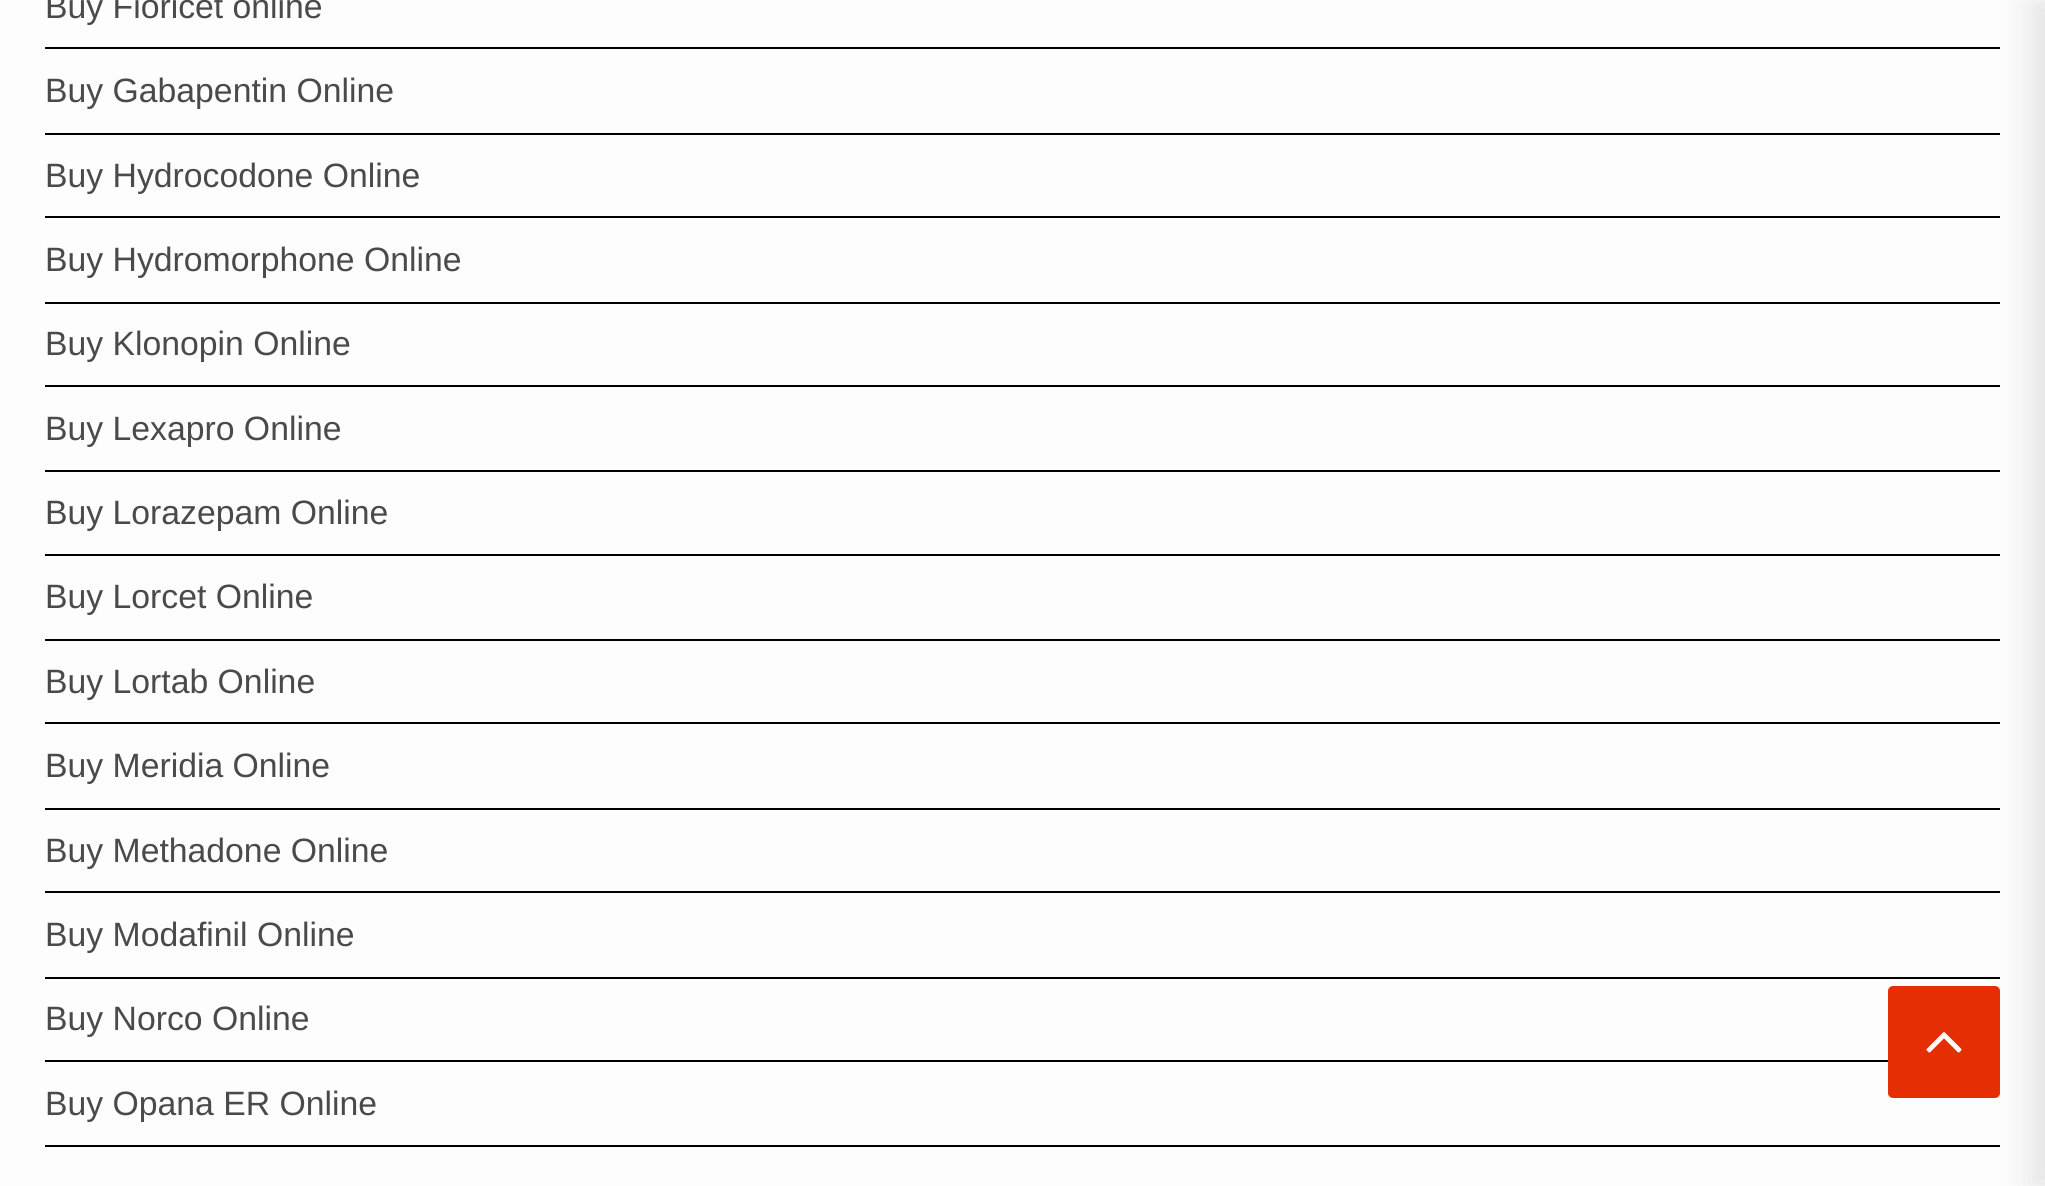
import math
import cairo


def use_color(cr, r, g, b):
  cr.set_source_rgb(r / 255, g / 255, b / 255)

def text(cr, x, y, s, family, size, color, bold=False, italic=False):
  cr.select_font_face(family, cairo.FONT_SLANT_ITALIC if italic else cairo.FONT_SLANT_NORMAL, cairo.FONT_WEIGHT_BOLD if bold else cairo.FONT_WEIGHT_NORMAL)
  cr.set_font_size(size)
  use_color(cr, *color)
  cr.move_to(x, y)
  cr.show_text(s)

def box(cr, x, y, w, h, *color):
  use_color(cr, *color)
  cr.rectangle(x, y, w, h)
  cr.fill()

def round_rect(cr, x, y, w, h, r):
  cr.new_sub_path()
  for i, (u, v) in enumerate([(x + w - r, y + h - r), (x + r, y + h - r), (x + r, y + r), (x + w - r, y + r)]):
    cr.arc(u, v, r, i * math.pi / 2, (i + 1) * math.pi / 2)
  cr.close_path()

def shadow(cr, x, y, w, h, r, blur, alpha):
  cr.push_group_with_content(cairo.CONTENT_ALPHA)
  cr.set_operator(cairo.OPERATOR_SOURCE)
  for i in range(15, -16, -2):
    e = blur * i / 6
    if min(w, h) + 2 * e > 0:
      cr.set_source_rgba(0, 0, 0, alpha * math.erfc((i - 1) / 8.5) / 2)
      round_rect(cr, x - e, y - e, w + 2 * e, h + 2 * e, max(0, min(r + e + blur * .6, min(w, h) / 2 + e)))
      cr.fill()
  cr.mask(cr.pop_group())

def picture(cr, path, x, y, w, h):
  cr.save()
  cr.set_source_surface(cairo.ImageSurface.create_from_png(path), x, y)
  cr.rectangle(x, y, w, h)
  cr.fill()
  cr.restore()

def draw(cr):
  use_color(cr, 253, 253, 253)
  cr.paint()
  box(cr, 45, 47, 1955, 2, 0, 0, 0)
  box(cr, 45, 133, 1955, 2, 0, 0, 0)
  box(cr, 45, 216, 1955, 2, 0, 0, 0)
  box(cr, 45, 302, 1955, 2, 0, 0, 0)
  box(cr, 45, 385, 1955, 2, 0, 0, 0)
  box(cr, 45, 470, 1955, 2, 0, 0, 0)
  box(cr, 45, 554, 1955, 2, 0, 0, 0)
  box(cr, 45, 639, 1955, 2, 0, 0, 0)
  box(cr, 45, 722, 1955, 2, 0, 0, 0)
  box(cr, 45, 808, 1955, 2, 0, 0, 0)
  box(cr, 45, 891, 1955, 2, 0, 0, 0)
  box(cr, 45, 977, 1955, 2, 0, 0, 0)
  box(cr, 45, 1060, 1843, 2, 0, 0, 0)
  box(cr, 45, 1145, 1955, 2, 0, 0, 0)
  use_color(cr, 230, 46, 4)
  round_rect(cr, 1888, 986, 112, 112, 5)
  cr.fill()
  picture(cr, "img_01.png", 1926, 1032, 36, 21)
  use_color(cr, 0, 0, 0)
  shadow(cr, 2030, 0, 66, 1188, 0, 17, 0.1)
  text(cr, 45, 18, "Buy Fioricet online", "Liberation Sans", 33.75, (74, 74, 74))
  text(cr, 45, 102, "Buy Gabapentin Online", "Liberation Sans", 33.75, (74, 74, 74))
  text(cr, 45, 187, "Buy Hydrocodone Online", "Liberation Sans", 33.75, (74, 74, 74))
  text(cr, 45, 271, "Buy Hydromorphone Online", "Liberation Sans", 33.75, (74, 74, 74))
  text(cr, 45, 355, "Buy Klonopin Online", "Liberation Sans", 33.75, (74, 74, 74))
  text(cr, 45, 440, "Buy Lexapro Online", "Liberation Sans", 33.75, (74, 74, 74))
  text(cr, 45, 524, "Buy Lorazepam Online", "Liberation Sans", 33.75, (74, 74, 74))
  text(cr, 45, 608, "Buy Lorcet Online", "Liberation Sans", 33.75, (74, 74, 74))
  text(cr, 45, 693, "Buy Lortab Online", "Liberation Sans", 33.75, (74, 74, 74))
  text(cr, 45, 777, "Buy Meridia Online", "Liberation Sans", 33.75, (74, 74, 74))
  text(cr, 45, 862, "Buy Methadone Online", "Liberation Sans", 33.75, (74, 74, 74))
  text(cr, 45, 946, "Buy Modafinil Online", "Liberation Sans", 33.75, (74, 74, 74))
  text(cr, 45, 1030, "Buy Norco Online", "Liberation Sans", 33.75, (74, 74, 74))
  text(cr, 45, 1115, "Buy Opana ER Online", "Liberation Sans", 33.75, (74, 74, 74))


surface = cairo.ImageSurface(cairo.FORMAT_RGB24, 2045, 1186)
cr = cairo.Context(surface)
options = cairo.FontOptions()
options.set_hint_metrics(cairo.HINT_METRICS_OFF)
options.set_hint_style(cairo.HINT_STYLE_NONE)
cr.set_font_options(options)
cr.set_miter_limit(4)
draw(cr)
surface.write_to_png("out.png")
